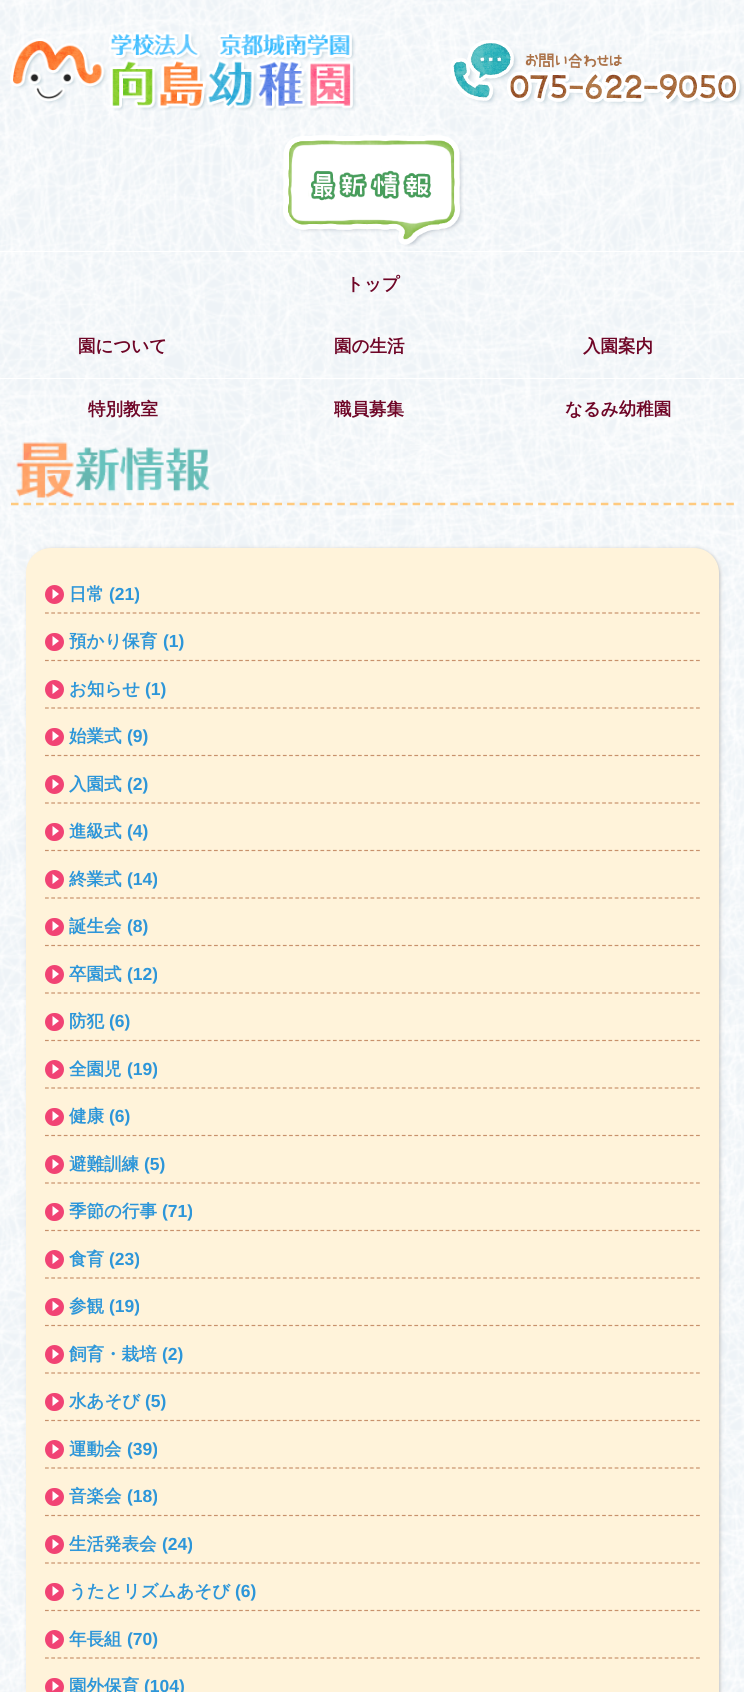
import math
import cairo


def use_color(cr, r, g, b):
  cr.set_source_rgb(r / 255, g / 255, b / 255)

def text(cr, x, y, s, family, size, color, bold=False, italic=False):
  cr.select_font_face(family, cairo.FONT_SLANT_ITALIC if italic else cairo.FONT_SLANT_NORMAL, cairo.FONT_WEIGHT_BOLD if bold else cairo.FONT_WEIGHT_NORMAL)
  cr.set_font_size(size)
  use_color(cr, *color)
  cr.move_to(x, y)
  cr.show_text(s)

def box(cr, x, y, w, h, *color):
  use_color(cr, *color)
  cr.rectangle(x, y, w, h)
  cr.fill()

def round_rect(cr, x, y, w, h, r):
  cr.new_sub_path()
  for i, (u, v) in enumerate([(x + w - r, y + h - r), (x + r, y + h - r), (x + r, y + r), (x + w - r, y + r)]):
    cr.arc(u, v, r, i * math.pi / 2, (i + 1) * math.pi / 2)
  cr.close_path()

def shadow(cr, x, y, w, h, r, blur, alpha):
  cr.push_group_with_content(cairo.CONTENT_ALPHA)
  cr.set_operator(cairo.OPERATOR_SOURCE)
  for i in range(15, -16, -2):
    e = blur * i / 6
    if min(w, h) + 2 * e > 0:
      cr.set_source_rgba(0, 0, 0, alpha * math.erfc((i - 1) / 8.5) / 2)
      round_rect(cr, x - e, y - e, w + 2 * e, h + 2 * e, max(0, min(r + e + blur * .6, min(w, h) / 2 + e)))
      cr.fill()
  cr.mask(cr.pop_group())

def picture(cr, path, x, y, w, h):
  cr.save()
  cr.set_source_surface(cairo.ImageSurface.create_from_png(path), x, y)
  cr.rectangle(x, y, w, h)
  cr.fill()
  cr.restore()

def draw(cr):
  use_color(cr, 255, 255, 255)
  cr.paint()
  picture(cr, "img_01.png", 0, 0, 744, 1692)
  picture(cr, "img_02.png", 10, 31, 346, 80)
  picture(cr, "img_03.png", 450, 40, 294, 66)
  picture(cr, "img_04.png", 283, 135, 181, 112)
  box(cr, 0, 251, 744, 1, 255, 255, 255)
  box(cr, 0, 378, 744, 1, 255, 255, 255)
  cr.new_path()
  cr.move_to(11, 504)
  cr.line_to(734, 504)
  use_color(cr, 255, 202, 127)
  cr.set_line_width(2.5)
  cr.set_dash([7.5, 5.05])
  cr.stroke()
  picture(cr, "img_05.png", 16, 442, 194, 56)
  use_color(cr, 188, 188, 188)
  shadow(cr, 28, 549, 692, 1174, 25, 2, 1)
  use_color(cr, 255, 243, 218)
  round_rect(cr, 26, 548, 693, 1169, 25)
  cr.fill()
  cr.new_path()
  cr.move_to(45, 613)
  cr.line_to(700, 613)
  use_color(cr, 200, 145, 108)
  cr.set_line_width(1.2)
  cr.set_dash([3.75, 2.51])
  cr.stroke()
  use_color(cr, 241, 67, 116)
  cr.arc(54.5, 594.5, 9.5, 0, 2 * math.pi)
  cr.fill()
  use_color(cr, 255, 255, 255)
  cr.new_path()
  cr.move_to(52.5, 599)
  cr.line_to(52.5, 589)
  cr.line_to(59, 594)
  cr.close_path()
  cr.fill()
  cr.new_path()
  cr.move_to(45, 660.5)
  cr.line_to(700, 660.5)
  use_color(cr, 200, 145, 108)
  cr.stroke()
  use_color(cr, 241, 67, 116)
  round_rect(cr, 45, 633, 19, 18, 9)
  cr.fill()
  use_color(cr, 255, 255, 255)
  cr.new_path()
  cr.move_to(52.5, 646)
  cr.line_to(52.5, 636)
  cr.line_to(59, 641)
  cr.close_path()
  cr.fill()
  cr.new_path()
  cr.move_to(45, 708)
  cr.line_to(700, 708)
  use_color(cr, 200, 145, 108)
  cr.stroke()
  use_color(cr, 241, 67, 116)
  cr.arc(54.5, 689.5, 9.5, 0, 2 * math.pi)
  cr.fill()
  use_color(cr, 255, 255, 255)
  cr.new_path()
  cr.move_to(52.5, 694)
  cr.line_to(52.5, 684)
  cr.line_to(59, 689)
  cr.close_path()
  cr.fill()
  cr.new_path()
  cr.move_to(45, 755.5)
  cr.line_to(700, 755.5)
  use_color(cr, 200, 145, 108)
  cr.stroke()
  use_color(cr, 241, 67, 116)
  round_rect(cr, 45, 728, 19, 18, 9)
  cr.fill()
  use_color(cr, 255, 255, 255)
  cr.new_path()
  cr.move_to(52.5, 741)
  cr.line_to(52.5, 731)
  cr.line_to(59, 736)
  cr.close_path()
  cr.fill()
  cr.new_path()
  cr.move_to(45, 803)
  cr.line_to(700, 803)
  use_color(cr, 200, 145, 108)
  cr.stroke()
  use_color(cr, 241, 67, 116)
  cr.arc(54.5, 784.5, 9.5, 0, 2 * math.pi)
  cr.fill()
  use_color(cr, 255, 255, 255)
  cr.new_path()
  cr.move_to(52.5, 789)
  cr.line_to(52.5, 779)
  cr.line_to(59, 784)
  cr.close_path()
  cr.fill()
  cr.new_path()
  cr.move_to(45, 850.5)
  cr.line_to(700, 850.5)
  use_color(cr, 200, 145, 108)
  cr.stroke()
  use_color(cr, 241, 67, 116)
  round_rect(cr, 45, 823, 19, 18, 9)
  cr.fill()
  use_color(cr, 255, 255, 255)
  cr.new_path()
  cr.move_to(52.5, 836)
  cr.line_to(52.5, 826)
  cr.line_to(59, 831)
  cr.close_path()
  cr.fill()
  cr.new_path()
  cr.move_to(45, 898)
  cr.line_to(700, 898)
  use_color(cr, 200, 145, 108)
  cr.stroke()
  use_color(cr, 241, 67, 116)
  cr.arc(54.5, 879.5, 9.5, 0, 2 * math.pi)
  cr.fill()
  use_color(cr, 255, 255, 255)
  cr.new_path()
  cr.move_to(52.5, 884)
  cr.line_to(52.5, 874)
  cr.line_to(59, 879)
  cr.close_path()
  cr.fill()
  cr.new_path()
  cr.move_to(45, 945.5)
  cr.line_to(700, 945.5)
  use_color(cr, 200, 145, 108)
  cr.stroke()
  use_color(cr, 241, 67, 116)
  round_rect(cr, 45, 918, 19, 18, 9)
  cr.fill()
  use_color(cr, 255, 255, 255)
  cr.new_path()
  cr.move_to(52.5, 931)
  cr.line_to(52.5, 921)
  cr.line_to(59, 926)
  cr.close_path()
  cr.fill()
  cr.new_path()
  cr.move_to(45, 993)
  cr.line_to(700, 993)
  use_color(cr, 200, 145, 108)
  cr.stroke()
  use_color(cr, 241, 67, 116)
  cr.arc(54.5, 974.5, 9.5, 0, 2 * math.pi)
  cr.fill()
  use_color(cr, 255, 255, 255)
  cr.new_path()
  cr.move_to(52.5, 979)
  cr.line_to(52.5, 969)
  cr.line_to(59, 974)
  cr.close_path()
  cr.fill()
  cr.new_path()
  cr.move_to(45, 1040.5)
  cr.line_to(700, 1040.5)
  use_color(cr, 200, 145, 108)
  cr.stroke()
  use_color(cr, 241, 67, 116)
  round_rect(cr, 45, 1013, 19, 18, 9)
  cr.fill()
  use_color(cr, 255, 255, 255)
  cr.new_path()
  cr.move_to(52.5, 1026)
  cr.line_to(52.5, 1016)
  cr.line_to(59, 1021)
  cr.close_path()
  cr.fill()
  cr.new_path()
  cr.move_to(45, 1088)
  cr.line_to(700, 1088)
  use_color(cr, 200, 145, 108)
  cr.stroke()
  use_color(cr, 241, 67, 116)
  cr.arc(54.5, 1069.5, 9.5, 0, 2 * math.pi)
  cr.fill()
  use_color(cr, 255, 255, 255)
  cr.new_path()
  cr.move_to(52.5, 1074)
  cr.line_to(52.5, 1064)
  cr.line_to(59, 1069)
  cr.close_path()
  cr.fill()
  cr.new_path()
  cr.move_to(45, 1135.5)
  cr.line_to(700, 1135.5)
  use_color(cr, 200, 145, 108)
  cr.stroke()
  use_color(cr, 241, 67, 116)
  round_rect(cr, 45, 1108, 19, 18, 9)
  cr.fill()
  use_color(cr, 255, 255, 255)
  cr.new_path()
  cr.move_to(52.5, 1121)
  cr.line_to(52.5, 1111)
  cr.line_to(59, 1116)
  cr.close_path()
  cr.fill()
  cr.new_path()
  cr.move_to(45, 1183)
  cr.line_to(700, 1183)
  use_color(cr, 200, 145, 108)
  cr.stroke()
  use_color(cr, 241, 67, 116)
  cr.arc(54.5, 1164.5, 9.5, 0, 2 * math.pi)
  cr.fill()
  use_color(cr, 255, 255, 255)
  cr.new_path()
  cr.move_to(52.5, 1169)
  cr.line_to(52.5, 1159)
  cr.line_to(59, 1164)
  cr.close_path()
  cr.fill()
  cr.new_path()
  cr.move_to(45, 1230.5)
  cr.line_to(700, 1230.5)
  use_color(cr, 200, 145, 108)
  cr.stroke()
  use_color(cr, 241, 67, 116)
  round_rect(cr, 45, 1203, 19, 18, 9)
  cr.fill()
  use_color(cr, 255, 255, 255)
  cr.new_path()
  cr.move_to(52.5, 1216)
  cr.line_to(52.5, 1206)
  cr.line_to(59, 1211)
  cr.close_path()
  cr.fill()
  cr.new_path()
  cr.move_to(45, 1278)
  cr.line_to(700, 1278)
  use_color(cr, 200, 145, 108)
  cr.stroke()
  use_color(cr, 241, 67, 116)
  cr.arc(54.5, 1259.5, 9.5, 0, 2 * math.pi)
  cr.fill()
  use_color(cr, 255, 255, 255)
  cr.new_path()
  cr.move_to(52.5, 1264)
  cr.line_to(52.5, 1254)
  cr.line_to(59, 1259)
  cr.close_path()
  cr.fill()
  cr.new_path()
  cr.move_to(45, 1325.5)
  cr.line_to(700, 1325.5)
  use_color(cr, 200, 145, 108)
  cr.stroke()
  use_color(cr, 241, 67, 116)
  round_rect(cr, 45, 1298, 19, 18, 9)
  cr.fill()
  use_color(cr, 255, 255, 255)
  cr.new_path()
  cr.move_to(52.5, 1311)
  cr.line_to(52.5, 1301)
  cr.line_to(59, 1306)
  cr.close_path()
  cr.fill()
  cr.new_path()
  cr.move_to(45, 1373)
  cr.line_to(700, 1373)
  use_color(cr, 200, 145, 108)
  cr.stroke()
  use_color(cr, 241, 67, 116)
  cr.arc(54.5, 1354.5, 9.5, 0, 2 * math.pi)
  cr.fill()
  use_color(cr, 255, 255, 255)
  cr.new_path()
  cr.move_to(52.5, 1359)
  cr.line_to(52.5, 1349)
  cr.line_to(59, 1354)
  cr.close_path()
  cr.fill()
  cr.new_path()
  cr.move_to(45, 1420.5)
  cr.line_to(700, 1420.5)
  use_color(cr, 200, 145, 108)
  cr.stroke()
  use_color(cr, 241, 67, 116)
  round_rect(cr, 45, 1393, 19, 18, 9)
  cr.fill()
  use_color(cr, 255, 255, 255)
  cr.new_path()
  cr.move_to(52.5, 1406)
  cr.line_to(52.5, 1396)
  cr.line_to(59, 1401)
  cr.close_path()
  cr.fill()
  cr.new_path()
  cr.move_to(45, 1468)
  cr.line_to(700, 1468)
  use_color(cr, 200, 145, 108)
  cr.stroke()
  use_color(cr, 241, 67, 116)
  cr.arc(54.5, 1449.5, 9.5, 0, 2 * math.pi)
  cr.fill()
  use_color(cr, 255, 255, 255)
  cr.new_path()
  cr.move_to(52.5, 1454)
  cr.line_to(52.5, 1444)
  cr.line_to(59, 1449)
  cr.close_path()
  cr.fill()
  cr.new_path()
  cr.move_to(45, 1515.5)
  cr.line_to(700, 1515.5)
  use_color(cr, 200, 145, 108)
  cr.stroke()
  use_color(cr, 241, 67, 116)
  round_rect(cr, 45, 1488, 19, 18, 9)
  cr.fill()
  use_color(cr, 255, 255, 255)
  cr.new_path()
  cr.move_to(52.5, 1501)
  cr.line_to(52.5, 1491)
  cr.line_to(59, 1496)
  cr.close_path()
  cr.fill()
  cr.new_path()
  cr.move_to(45, 1563)
  cr.line_to(700, 1563)
  use_color(cr, 200, 145, 108)
  cr.stroke()
  use_color(cr, 241, 67, 116)
  cr.arc(54.5, 1544.5, 9.5, 0, 2 * math.pi)
  cr.fill()
  use_color(cr, 255, 255, 255)
  cr.new_path()
  cr.move_to(52.5, 1549)
  cr.line_to(52.5, 1539)
  cr.line_to(59, 1544)
  cr.close_path()
  cr.fill()
  cr.new_path()
  cr.move_to(45, 1610.5)
  cr.line_to(700, 1610.5)
  use_color(cr, 200, 145, 108)
  cr.stroke()
  use_color(cr, 241, 67, 116)
  round_rect(cr, 45, 1583, 19, 18, 9)
  cr.fill()
  use_color(cr, 255, 255, 255)
  cr.new_path()
  cr.move_to(52.5, 1596)
  cr.line_to(52.5, 1586)
  cr.line_to(59, 1591)
  cr.close_path()
  cr.fill()
  cr.new_path()
  cr.move_to(45, 1658)
  cr.line_to(700, 1658)
  use_color(cr, 200, 145, 108)
  cr.stroke()
  use_color(cr, 241, 67, 116)
  cr.arc(54.5, 1639.5, 9.5, 0, 2 * math.pi)
  cr.fill()
  use_color(cr, 255, 255, 255)
  cr.new_path()
  cr.move_to(52.5, 1644)
  cr.line_to(52.5, 1634)
  cr.line_to(59, 1639)
  cr.close_path()
  cr.fill()
  use_color(cr, 241, 67, 116)
  round_rect(cr, 45, 1678, 19, 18, 9)
  cr.fill()
  use_color(cr, 255, 255, 255)
  cr.new_path()
  cr.move_to(52.5, 1691)
  cr.line_to(52.5, 1681)
  cr.line_to(59, 1686)
  cr.close_path()
  cr.fill()
  text(cr, 346, 290, "トップ", "WenQuanYi Zen Hei", 17.5, (111, 6, 39), bold=True)
  text(cr, 78, 352, "園について", "WenQuanYi Zen Hei", 17.5, (111, 6, 39), bold=True)
  text(cr, 334, 352, "園の生活", "WenQuanYi Zen Hei", 17.5, (111, 6, 39), bold=True)
  text(cr, 583, 352, "入園案内", "WenQuanYi Zen Hei", 17.5, (111, 6, 39), bold=True)
  text(cr, 88, 415, "特別教室", "WenQuanYi Zen Hei", 17.5, (111, 6, 39), bold=True)
  text(cr, 334, 415, "職員募集", "WenQuanYi Zen Hei", 17.5, (111, 6, 39), bold=True)
  text(cr, 565, 415, "なるみ幼稚園", "WenQuanYi Zen Hei", 17.5, (111, 6, 39), bold=True)
  text(cr, 69, 600, "日常", "WenQuanYi Zen Hei", 17.5, (45, 150, 217), bold=True)
  text(cr, 109, 600, "(21)", "Liberation Sans", 17.5, (45, 150, 217), bold=True)
  text(cr, 69, 647, "預かり保育", "WenQuanYi Zen Hei", 17.5, (45, 150, 217), bold=True)
  text(cr, 163, 647, "(1)", "Liberation Sans", 17.5, (45, 150, 217), bold=True)
  text(cr, 69, 695, "お知らせ", "WenQuanYi Zen Hei", 17.5, (45, 150, 217), bold=True)
  text(cr, 145, 695, "(1)", "Liberation Sans", 17.5, (45, 150, 217), bold=True)
  text(cr, 69, 742, "始業式", "WenQuanYi Zen Hei", 17.5, (45, 150, 217), bold=True)
  text(cr, 127, 742, "(9)", "Liberation Sans", 17.5, (45, 150, 217), bold=True)
  text(cr, 69, 790, "入園式", "WenQuanYi Zen Hei", 17.5, (45, 150, 217), bold=True)
  text(cr, 127, 790, "(2)", "Liberation Sans", 17.5, (45, 150, 217), bold=True)
  text(cr, 69, 837, "進級式", "WenQuanYi Zen Hei", 17.5, (45, 150, 217), bold=True)
  text(cr, 127, 837, "(4)", "Liberation Sans", 17.5, (45, 150, 217), bold=True)
  text(cr, 69, 885, "終業式", "WenQuanYi Zen Hei", 17.5, (45, 150, 217), bold=True)
  text(cr, 127, 885, "(14)", "Liberation Sans", 17.5, (45, 150, 217), bold=True)
  text(cr, 69, 932, "誕生会", "WenQuanYi Zen Hei", 17.5, (45, 150, 217), bold=True)
  text(cr, 127, 932, "(8)", "Liberation Sans", 17.5, (45, 150, 217), bold=True)
  text(cr, 69, 980, "卒園式", "WenQuanYi Zen Hei", 17.5, (45, 150, 217), bold=True)
  text(cr, 127, 980, "(12)", "Liberation Sans", 17.5, (45, 150, 217), bold=True)
  text(cr, 69, 1027, "防犯", "WenQuanYi Zen Hei", 17.5, (45, 150, 217), bold=True)
  text(cr, 109, 1027, "(6)", "Liberation Sans", 17.5, (45, 150, 217), bold=True)
  text(cr, 69, 1075, "全園児", "WenQuanYi Zen Hei", 17.5, (45, 150, 217), bold=True)
  text(cr, 127, 1075, "(19)", "Liberation Sans", 17.5, (45, 150, 217), bold=True)
  text(cr, 69, 1122, "健康", "WenQuanYi Zen Hei", 17.5, (45, 150, 217), bold=True)
  text(cr, 109, 1122, "(6)", "Liberation Sans", 17.5, (45, 150, 217), bold=True)
  text(cr, 69, 1170, "避難訓練", "WenQuanYi Zen Hei", 17.5, (45, 150, 217), bold=True)
  text(cr, 144, 1170, "(5)", "Liberation Sans", 17.5, (45, 150, 217), bold=True)
  text(cr, 69, 1217, "季節の行事", "WenQuanYi Zen Hei", 17.5, (45, 150, 217), bold=True)
  text(cr, 162, 1217, "(71)", "Liberation Sans", 17.5, (45, 150, 217), bold=True)
  text(cr, 69, 1265, "食育", "WenQuanYi Zen Hei", 17.5, (45, 150, 217), bold=True)
  text(cr, 109, 1265, "(23)", "Liberation Sans", 17.5, (45, 150, 217), bold=True)
  text(cr, 69, 1312, "参観", "WenQuanYi Zen Hei", 17.5, (45, 150, 217), bold=True)
  text(cr, 109, 1312, "(19)", "Liberation Sans", 17.5, (45, 150, 217), bold=True)
  text(cr, 69, 1360, "飼育・栽培", "WenQuanYi Zen Hei", 17.5, (45, 150, 217), bold=True)
  text(cr, 162, 1360, "(2)", "Liberation Sans", 17.5, (45, 150, 217), bold=True)
  text(cr, 69, 1407, "水あそび", "WenQuanYi Zen Hei", 17.5, (45, 150, 217), bold=True)
  text(cr, 145, 1407, "(5)", "Liberation Sans", 17.5, (45, 150, 217), bold=True)
  text(cr, 69, 1455, "運動会", "WenQuanYi Zen Hei", 17.5, (45, 150, 217), bold=True)
  text(cr, 127, 1455, "(39)", "Liberation Sans", 17.5, (45, 150, 217), bold=True)
  text(cr, 69, 1502, "音楽会", "WenQuanYi Zen Hei", 17.5, (45, 150, 217), bold=True)
  text(cr, 127, 1502, "(18)", "Liberation Sans", 17.5, (45, 150, 217), bold=True)
  text(cr, 69, 1550, "生活発表会", "WenQuanYi Zen Hei", 17.5, (45, 150, 217), bold=True)
  text(cr, 162, 1550, "(24)", "Liberation Sans", 17.5, (45, 150, 217), bold=True)
  text(cr, 69, 1597, "うたとリズムあそび", "WenQuanYi Zen Hei", 17.5, (45, 150, 217), bold=True)
  text(cr, 235, 1597, "(6)", "Liberation Sans", 17.5, (45, 150, 217), bold=True)
  text(cr, 69, 1645, "年長組", "WenQuanYi Zen Hei", 17.5, (45, 150, 217), bold=True)
  text(cr, 127, 1645, "(70)", "Liberation Sans", 17.5, (45, 150, 217), bold=True)
  text(cr, 69, 1692, "園外保育", "WenQuanYi Zen Hei", 17.5, (45, 150, 217), bold=True)
  text(cr, 144, 1692, "(104)", "Liberation Sans", 17.5, (45, 150, 217), bold=True)


surface = cairo.ImageSurface(cairo.FORMAT_RGB24, 744, 1692)
cr = cairo.Context(surface)
options = cairo.FontOptions()
options.set_hint_metrics(cairo.HINT_METRICS_OFF)
options.set_hint_style(cairo.HINT_STYLE_NONE)
cr.set_font_options(options)
cr.set_miter_limit(4)
draw(cr)
surface.write_to_png("out.png")
